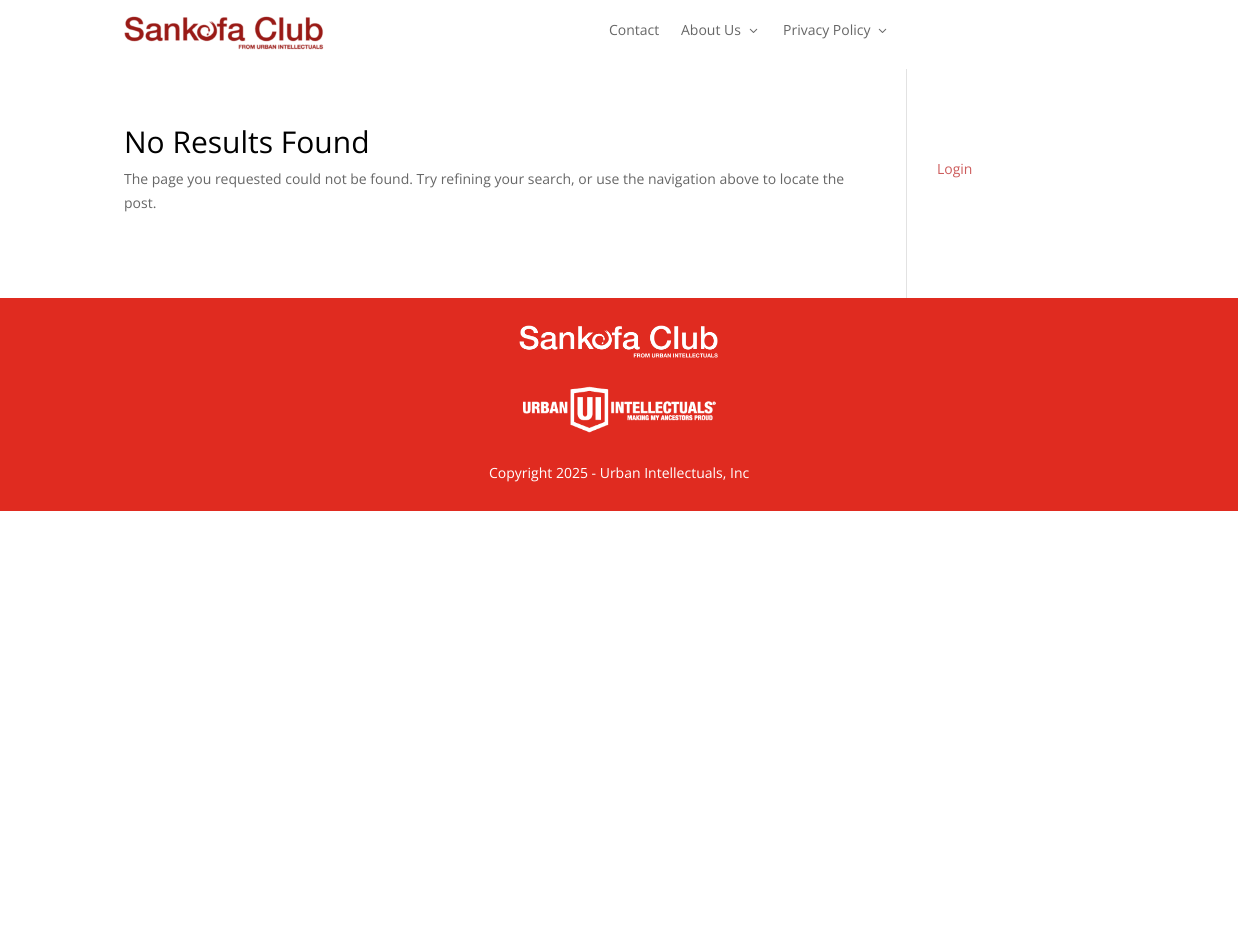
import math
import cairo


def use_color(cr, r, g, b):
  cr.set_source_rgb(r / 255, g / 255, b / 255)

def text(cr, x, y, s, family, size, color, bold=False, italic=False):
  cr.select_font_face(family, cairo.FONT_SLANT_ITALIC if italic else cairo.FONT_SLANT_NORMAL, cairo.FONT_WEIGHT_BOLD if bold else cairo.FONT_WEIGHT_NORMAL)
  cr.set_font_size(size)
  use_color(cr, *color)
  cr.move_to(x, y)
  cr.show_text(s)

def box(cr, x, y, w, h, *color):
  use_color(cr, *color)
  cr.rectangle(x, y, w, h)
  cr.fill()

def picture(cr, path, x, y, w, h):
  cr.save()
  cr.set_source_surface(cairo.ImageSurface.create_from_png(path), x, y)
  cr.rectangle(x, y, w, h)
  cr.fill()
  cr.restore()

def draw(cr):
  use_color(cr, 255, 255, 255)
  cr.paint()
  picture(cr, "img_01.png", 124, 16, 200, 34)
  picture(cr, "img_02.png", 749, 28, 9, 5)
  picture(cr, "img_02.png", 878, 28, 9, 5)
  box(cr, 906, 69, 1, 229, 226, 226, 226)
  box(cr, 0, 298, 1238, 213, 224, 43, 32)
  picture(cr, "img_03.png", 519, 325, 199, 33)
  picture(cr, "img_04.png", 523, 386, 193, 47)
  text(cr, 609, 35, "Contact", "Open Sans", 14, (102, 102, 102))
  text(cr, 681, 35, "About Us", "Open Sans", 14, (102, 102, 102))
  text(cr, 783, 35, "Privacy Policy", "Open Sans", 14, (102, 102, 102))
  text(cr, 124, 153, "No Results Found", "Open Sans", 30, (0, 0, 0))
  text(cr, 124, 184, "The page you requested could not be found. Try refining your search, or use the navigation above to locate the", "Open Sans", 14, (102, 102, 102))
  text(cr, 124, 208, "post.", "Open Sans", 14, (102, 102, 102))
  text(cr, 937, 174, "Login", "Open Sans", 14, (205, 92, 92))
  text(cr, 489, 478, "Copyright 2025 - Urban Intellectuals, Inc", "Open Sans", 14, (255, 255, 255))


surface = cairo.ImageSurface(cairo.FORMAT_RGB24, 1238, 952)
cr = cairo.Context(surface)
options = cairo.FontOptions()
options.set_hint_metrics(cairo.HINT_METRICS_OFF)
options.set_hint_style(cairo.HINT_STYLE_NONE)
cr.set_font_options(options)
cr.set_miter_limit(4)
draw(cr)
surface.write_to_png("out.png")
